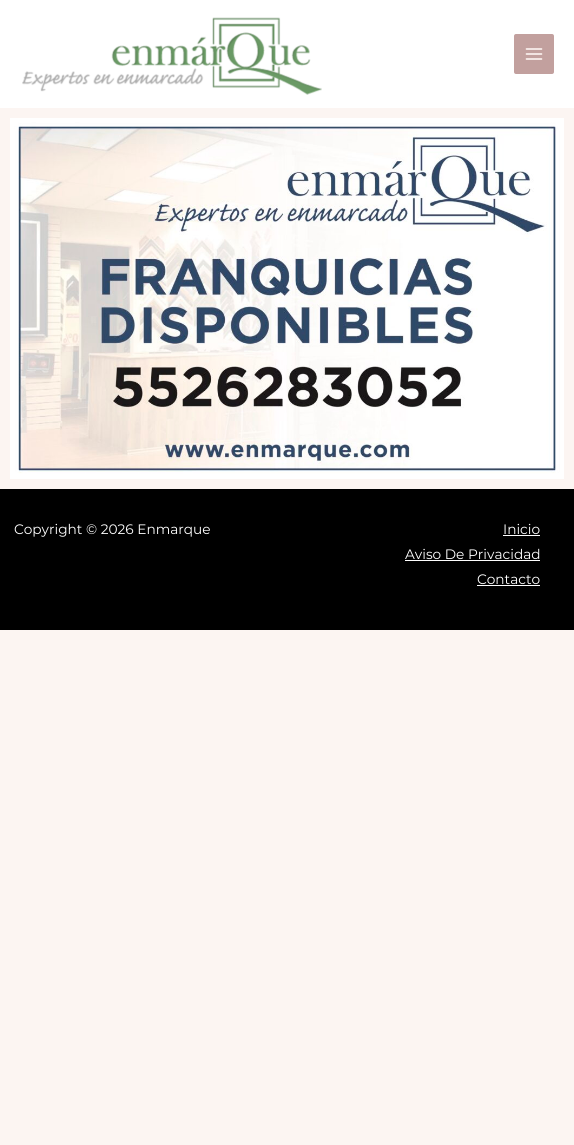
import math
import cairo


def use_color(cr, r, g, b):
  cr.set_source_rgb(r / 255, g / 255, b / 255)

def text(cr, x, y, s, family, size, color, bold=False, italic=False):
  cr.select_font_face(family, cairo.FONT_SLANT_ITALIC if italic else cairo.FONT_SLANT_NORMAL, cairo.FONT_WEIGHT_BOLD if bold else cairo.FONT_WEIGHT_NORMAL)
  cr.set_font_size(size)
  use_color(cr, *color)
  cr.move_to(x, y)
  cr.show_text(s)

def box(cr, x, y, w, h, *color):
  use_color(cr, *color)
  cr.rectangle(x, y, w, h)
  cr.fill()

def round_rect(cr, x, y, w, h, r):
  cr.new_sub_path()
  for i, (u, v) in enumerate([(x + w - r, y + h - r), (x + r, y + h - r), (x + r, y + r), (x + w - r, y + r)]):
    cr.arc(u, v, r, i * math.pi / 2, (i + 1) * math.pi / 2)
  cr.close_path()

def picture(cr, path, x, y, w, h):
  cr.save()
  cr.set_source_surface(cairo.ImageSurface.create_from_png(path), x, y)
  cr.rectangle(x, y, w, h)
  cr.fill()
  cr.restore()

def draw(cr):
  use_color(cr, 252, 245, 242)
  cr.paint()
  box(cr, 0, 0, 574, 108, 255, 255, 255)
  picture(cr, "img_01.png", 22, 17, 300, 78)
  use_color(cr, 194, 160, 158)
  round_rect(cr, 514, 34, 40, 40, 2)
  cr.fill()
  picture(cr, "img_02.png", 525, 48, 18, 12)
  picture(cr, "img_03.png", 10, 118, 554, 361)
  box(cr, 0, 489, 574, 141, 0, 0, 0)
  box(cr, 503, 535, 37, 1, 255, 255, 255)
  box(cr, 405, 560, 135, 1, 255, 255, 255)
  box(cr, 477, 585, 63, 1, 255, 255, 255)
  text(cr, 14, 534, "Copyright © 2026 Enmarque", "Montserrat", 13.7, (255, 255, 255))
  text(cr, 503, 534, "Inicio", "Montserrat", 13.7, (255, 255, 255))
  text(cr, 405, 559, "Aviso De Privacidad", "Montserrat", 13.7, (255, 255, 255))
  text(cr, 477, 584, "Contacto", "Montserrat", 13.7, (255, 255, 255))


surface = cairo.ImageSurface(cairo.FORMAT_RGB24, 574, 1145)
cr = cairo.Context(surface)
options = cairo.FontOptions()
options.set_hint_metrics(cairo.HINT_METRICS_OFF)
options.set_hint_style(cairo.HINT_STYLE_NONE)
cr.set_font_options(options)
cr.set_miter_limit(4)
draw(cr)
surface.write_to_png("out.png")
